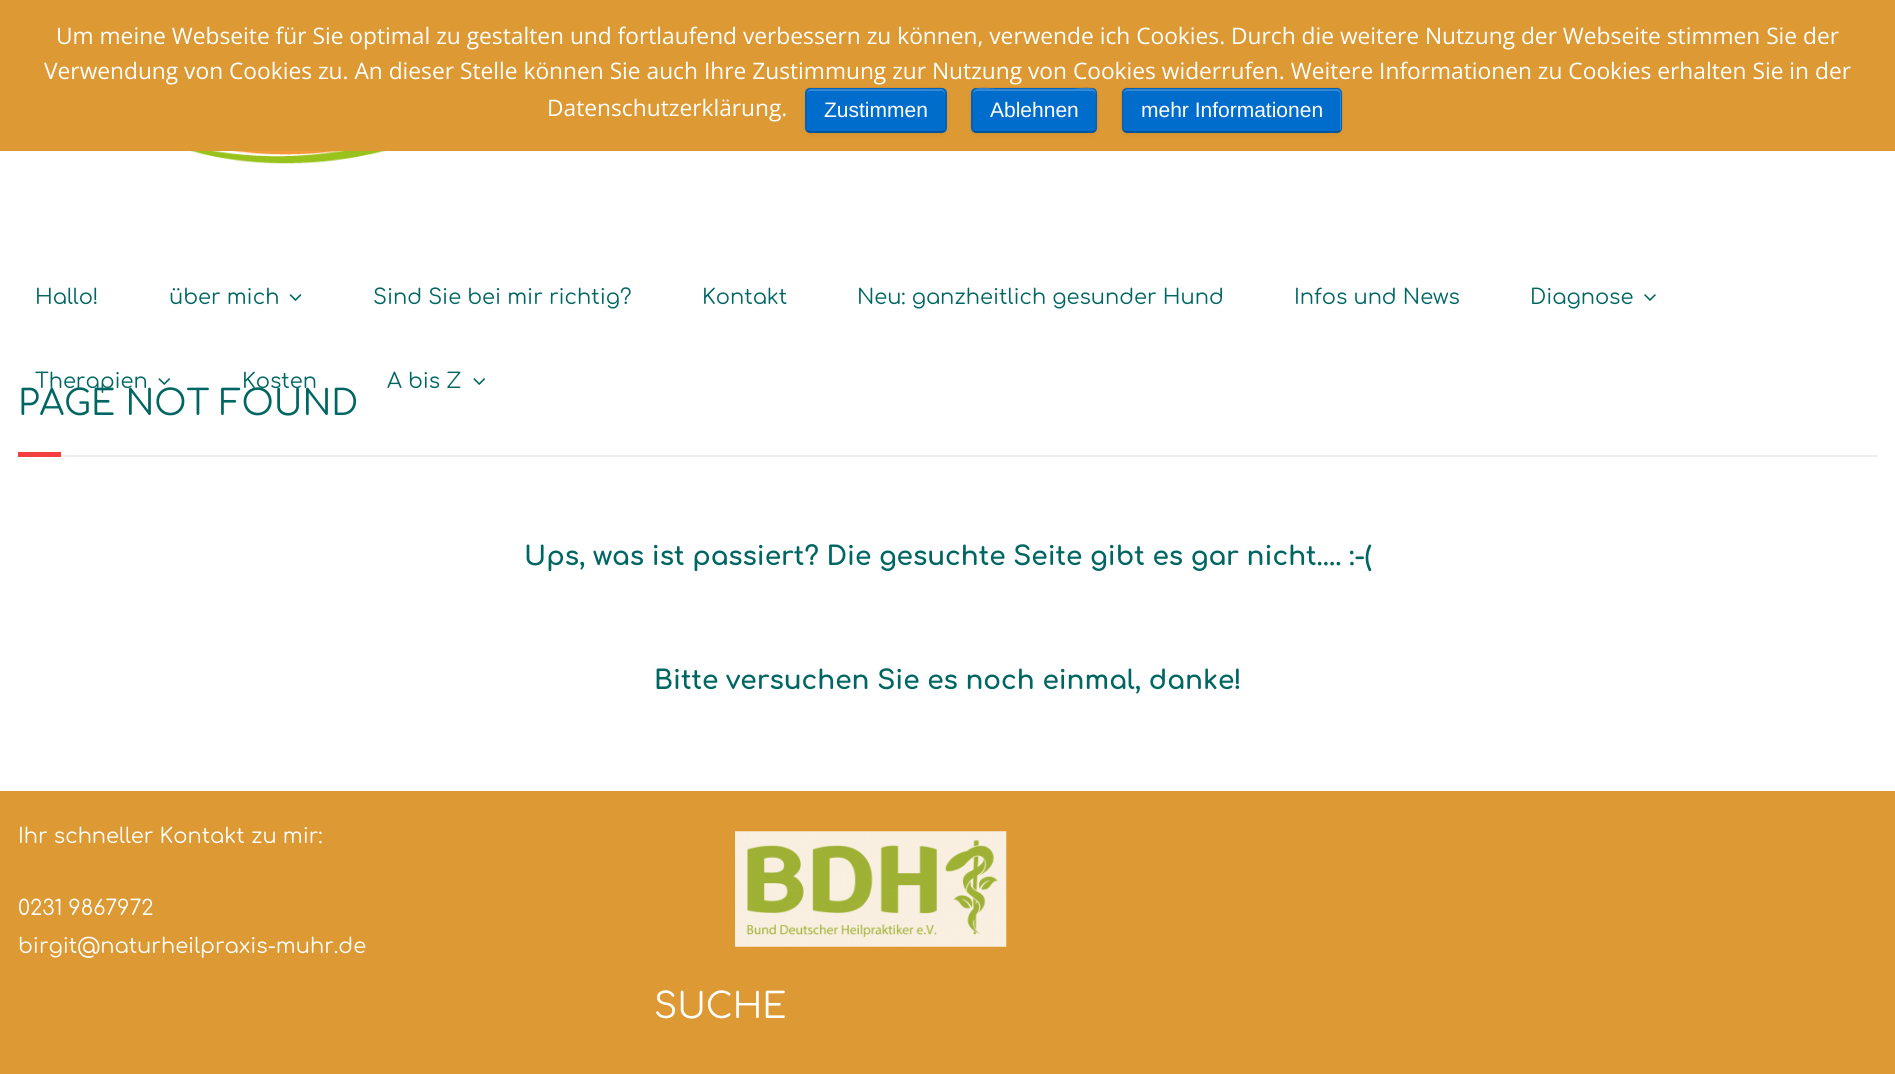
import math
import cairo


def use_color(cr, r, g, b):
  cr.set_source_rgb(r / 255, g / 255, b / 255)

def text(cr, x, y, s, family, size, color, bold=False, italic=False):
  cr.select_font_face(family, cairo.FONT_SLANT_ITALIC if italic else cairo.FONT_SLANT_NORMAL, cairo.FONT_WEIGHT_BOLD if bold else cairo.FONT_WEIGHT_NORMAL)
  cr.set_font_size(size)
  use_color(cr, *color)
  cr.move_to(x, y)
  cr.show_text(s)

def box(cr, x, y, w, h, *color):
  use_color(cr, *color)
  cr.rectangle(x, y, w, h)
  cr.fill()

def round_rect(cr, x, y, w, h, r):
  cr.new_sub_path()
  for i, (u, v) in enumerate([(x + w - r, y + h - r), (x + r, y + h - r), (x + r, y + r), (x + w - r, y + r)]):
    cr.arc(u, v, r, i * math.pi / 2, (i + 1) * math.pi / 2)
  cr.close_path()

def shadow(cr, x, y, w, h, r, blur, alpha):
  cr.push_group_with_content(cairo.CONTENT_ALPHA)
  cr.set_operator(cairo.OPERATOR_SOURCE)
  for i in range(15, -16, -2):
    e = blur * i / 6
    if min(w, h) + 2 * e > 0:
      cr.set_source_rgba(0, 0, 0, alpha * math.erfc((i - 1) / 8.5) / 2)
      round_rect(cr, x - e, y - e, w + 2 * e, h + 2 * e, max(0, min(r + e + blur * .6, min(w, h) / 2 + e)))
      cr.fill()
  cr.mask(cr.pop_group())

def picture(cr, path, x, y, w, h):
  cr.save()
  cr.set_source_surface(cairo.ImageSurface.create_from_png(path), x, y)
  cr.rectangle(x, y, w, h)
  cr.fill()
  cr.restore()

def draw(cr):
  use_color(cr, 255, 255, 255)
  cr.paint()
  box(cr, 0, 0, 1895, 151, 221, 153, 51)
  use_color(cr, 0, 0, 0)
  shadow(cr, 805, 89, 142, 46, 5, 2, 0.05)
  use_color(cr, 0, 109, 204)
  round_rect(cr, 805, 88, 142, 45, 5)
  cr.fill()
  use_color(cr, 51, 138, 214)
  cr.new_path()
  cr.move_to(810, 91)
  cr.line_to(942, 91)
  cr.curve_to(943, 91, 945, 93, 945, 94)
  cr.line_to(945, 93)
  cr.curve_to(945, 91, 943, 89, 941, 89)
  cr.line_to(811, 89)
  cr.curve_to(809, 89, 807, 91, 807, 93)
  cr.line_to(807, 94)
  cr.curve_to(807, 93, 808, 91, 810, 91)
  cr.close_path()
  cr.fill()
  cr.new_path()
  cr.move_to(944.5, 131)
  cr.line_to(942, 132)
  cr.line_to(832, 132)
  cr.line_to(810, 132)
  cr.line_to(807, 131)
  cr.set_source_rgba(0, 0, 0, 0.25)
  cr.set_line_width(1.8)
  cr.stroke()
  cr.new_path()
  cr.move_to(807, 131)
  cr.curve_to(804.5, 128, 806, 119, 806, 116)
  cr.line_to(806, 98.5)
  cr.curve_to(806, 95, 805, 88.5, 810, 88.5)
  cr.line_to(919.5, 88.5)
  cr.curve_to(949.5, 88.5, 946, 83, 946, 110)
  cr.line_to(946, 122)
  cr.curve_to(946, 124.5, 947, 128.5, 944.5, 131)
  cr.set_source_rgba(0, 0, 0, 0.1)
  cr.stroke()
  use_color(cr, 0, 0, 0)
  shadow(cr, 971, 89, 126, 46, 5, 2, 0.05)
  use_color(cr, 0, 109, 204)
  round_rect(cr, 971, 88, 126, 45, 5)
  cr.fill()
  use_color(cr, 51, 138, 214)
  cr.new_path()
  cr.move_to(976, 91)
  cr.line_to(1092, 91)
  cr.curve_to(1094, 91, 1096, 93, 1096, 94)
  cr.curve_to(1096, 84, 1076, 89, 1073, 89)
  cr.line_to(996, 89)
  cr.curve_to(993, 89, 973, 84, 973, 94)
  cr.curve_to(973, 93, 975, 91, 976, 91)
  cr.close_path()
  cr.fill()
  cr.new_path()
  cr.move_to(1095, 131)
  cr.line_to(1092.5, 132)
  cr.line_to(996, 132)
  cr.line_to(976.5, 132)
  cr.line_to(973.5, 131)
  cr.set_source_rgba(0, 0, 0, 0.25)
  cr.stroke()
  cr.new_path()
  cr.move_to(973.5, 131)
  cr.curve_to(970.5, 128, 972, 119, 972, 116)
  cr.line_to(972, 98.5)
  cr.curve_to(972, 95, 971, 88.5, 976.5, 88.5)
  cr.line_to(1073, 88.5)
  cr.curve_to(1100.5, 88.5, 1096.5, 84, 1096.5, 110)
  cr.line_to(1096.5, 122)
  cr.curve_to(1096.5, 124.5, 1097.5, 128.5, 1095, 131)
  cr.set_source_rgba(0, 0, 0, 0.1)
  cr.stroke()
  use_color(cr, 0, 0, 0)
  shadow(cr, 1122, 89, 220, 46, 5, 2, 0.05)
  use_color(cr, 0, 109, 204)
  round_rect(cr, 1122, 88, 220, 45, 5)
  cr.fill()
  use_color(cr, 51, 138, 214)
  cr.new_path()
  cr.move_to(1127, 91)
  cr.line_to(1337, 91)
  cr.curve_to(1339, 91, 1340, 93, 1340, 94)
  cr.line_to(1340, 130)
  cr.curve_to(1341, 129, 1341, 128, 1341, 127)
  cr.line_to(1341, 93)
  cr.curve_to(1341, 91, 1339, 89, 1337, 89)
  cr.line_to(1128, 89)
  cr.curve_to(1126, 89, 1124, 91, 1124, 93)
  cr.line_to(1124, 94)
  cr.curve_to(1124, 93, 1125, 91, 1127, 91)
  cr.close_path()
  cr.fill()
  cr.new_path()
  cr.move_to(1340, 131)
  cr.line_to(1337.5, 132)
  cr.line_to(1162, 132)
  cr.line_to(1127, 132)
  cr.line_to(1124, 131)
  cr.set_source_rgba(0, 0, 0, 0.25)
  cr.stroke()
  cr.new_path()
  cr.move_to(1124, 131)
  cr.curve_to(1123, 130, 1122.5, 129, 1122.5, 128)
  cr.line_to(1122.5, 93)
  cr.curve_to(1122.5, 91.5, 1123, 90.5, 1124, 89.5)
  cr.curve_to(1124.5, 89, 1126, 88.5, 1127, 88.5)
  cr.line_to(1337, 88.5)
  cr.curve_to(1338, 88.5, 1339.5, 89, 1340, 89.5)
  cr.curve_to(1341, 90.5, 1341.5, 91.5, 1341.5, 93)
  cr.line_to(1341.5, 128)
  cr.curve_to(1341.5, 129, 1341, 130, 1340, 131)
  cr.set_source_rgba(0, 0, 0, 0.1)
  cr.stroke()
  picture(cr, "img_01.png", 190, 151, 196, 13)
  picture(cr, "img_02.png", 289, 294, 13, 7)
  picture(cr, "img_03.png", 1644, 294, 12, 7)
  picture(cr, "img_04.png", 158, 378, 12, 7)
  picture(cr, "img_04.png", 473, 378, 12, 7)
  box(cr, 18, 452, 43, 5, 243, 63, 63)
  box(cr, 61, 455, 1817, 2, 238, 238, 238)
  box(cr, 0, 791, 1895, 283, 221, 153, 51)
  picture(cr, "img_05.png", 735, 831, 272, 116)
  text(cr, 56, 44, "Um meine Webseite für Sie optimal zu gestalten und fortlaufend verbessern zu können, verwende ich Cookies. Durch die weitere Nutzung der Webseite stimmen Sie der", "Open Sans", 22.75, (255, 255, 255))
  text(cr, 44, 79, "Verwendung von Cookies zu. An dieser Stelle können Sie auch Ihre Zustimmung zur Nutzung von Cookies widerrufen. Weitere Informationen zu Cookies erhalten Sie in der", "Open Sans", 22.75, (255, 255, 255))
  text(cr, 547, 116, "Datenschutzerklärung.", "Open Sans", 22.75, (255, 255, 255))
  text(cr, 824, 117, "Zustimmen", "Liberation Sans", 21, (255, 255, 255))
  text(cr, 990, 117, "Ablehnen", "Liberation Sans", 21, (255, 255, 255))
  text(cr, 1141, 117, "mehr Informationen", "Liberation Sans", 21, (255, 255, 255))
  text(cr, 35, 304, "Hallo!", "Comfortaa", 21, (0, 102, 100))
  text(cr, 169, 304, "über mich", "Comfortaa", 21, (0, 102, 100))
  text(cr, 373, 304, "Sind Sie bei mir richtig?", "Comfortaa", 21, (0, 102, 100))
  text(cr, 702, 304, "Kontakt", "Comfortaa", 21, (0, 102, 100))
  text(cr, 857, 304, "Neu: ganzheitlich gesunder Hund", "Comfortaa", 21, (0, 102, 100))
  text(cr, 1294, 304, "Infos und News", "Comfortaa", 21, (0, 102, 100))
  text(cr, 1530, 304, "Diagnose", "Comfortaa", 21, (0, 102, 100))
  text(cr, 35, 388, "Therapien", "Comfortaa", 21, (0, 102, 100))
  text(cr, 242, 388, "Kosten", "Comfortaa", 21, (0, 102, 100))
  text(cr, 387, 388, "A bis Z", "Comfortaa", 21, (0, 102, 100))
  text(cr, 18, 415, "PAGE NOT FOUND", "Comfortaa", 35, (0, 102, 100))
  text(cr, 524, 565, "Ups, was ist passiert? Die gesuchte Seite gibt es gar nicht.... :-(", "Comfortaa", 26.25, (0, 102, 100), bold=True)
  text(cr, 654, 689, "Bitte versuchen Sie es noch einmal, danke!", "Comfortaa", 26.25, (0, 102, 100), bold=True)
  text(cr, 18, 843, "Ihr schneller Kontakt zu mir:", "Comfortaa", 21, (255, 255, 255))
  text(cr, 18, 915, "0231 9867972", "Comfortaa", 21, (255, 255, 255))
  text(cr, 18, 953, "birgit@naturheilpraxis-muhr.de", "Comfortaa", 21, (255, 255, 255))
  text(cr, 654, 1018, "SUCHE", "Comfortaa", 35, (255, 255, 255))


surface = cairo.ImageSurface(cairo.FORMAT_RGB24, 1895, 1074)
cr = cairo.Context(surface)
options = cairo.FontOptions()
options.set_hint_metrics(cairo.HINT_METRICS_OFF)
options.set_hint_style(cairo.HINT_STYLE_NONE)
cr.set_font_options(options)
cr.set_miter_limit(4)
draw(cr)
surface.write_to_png("out.png")
